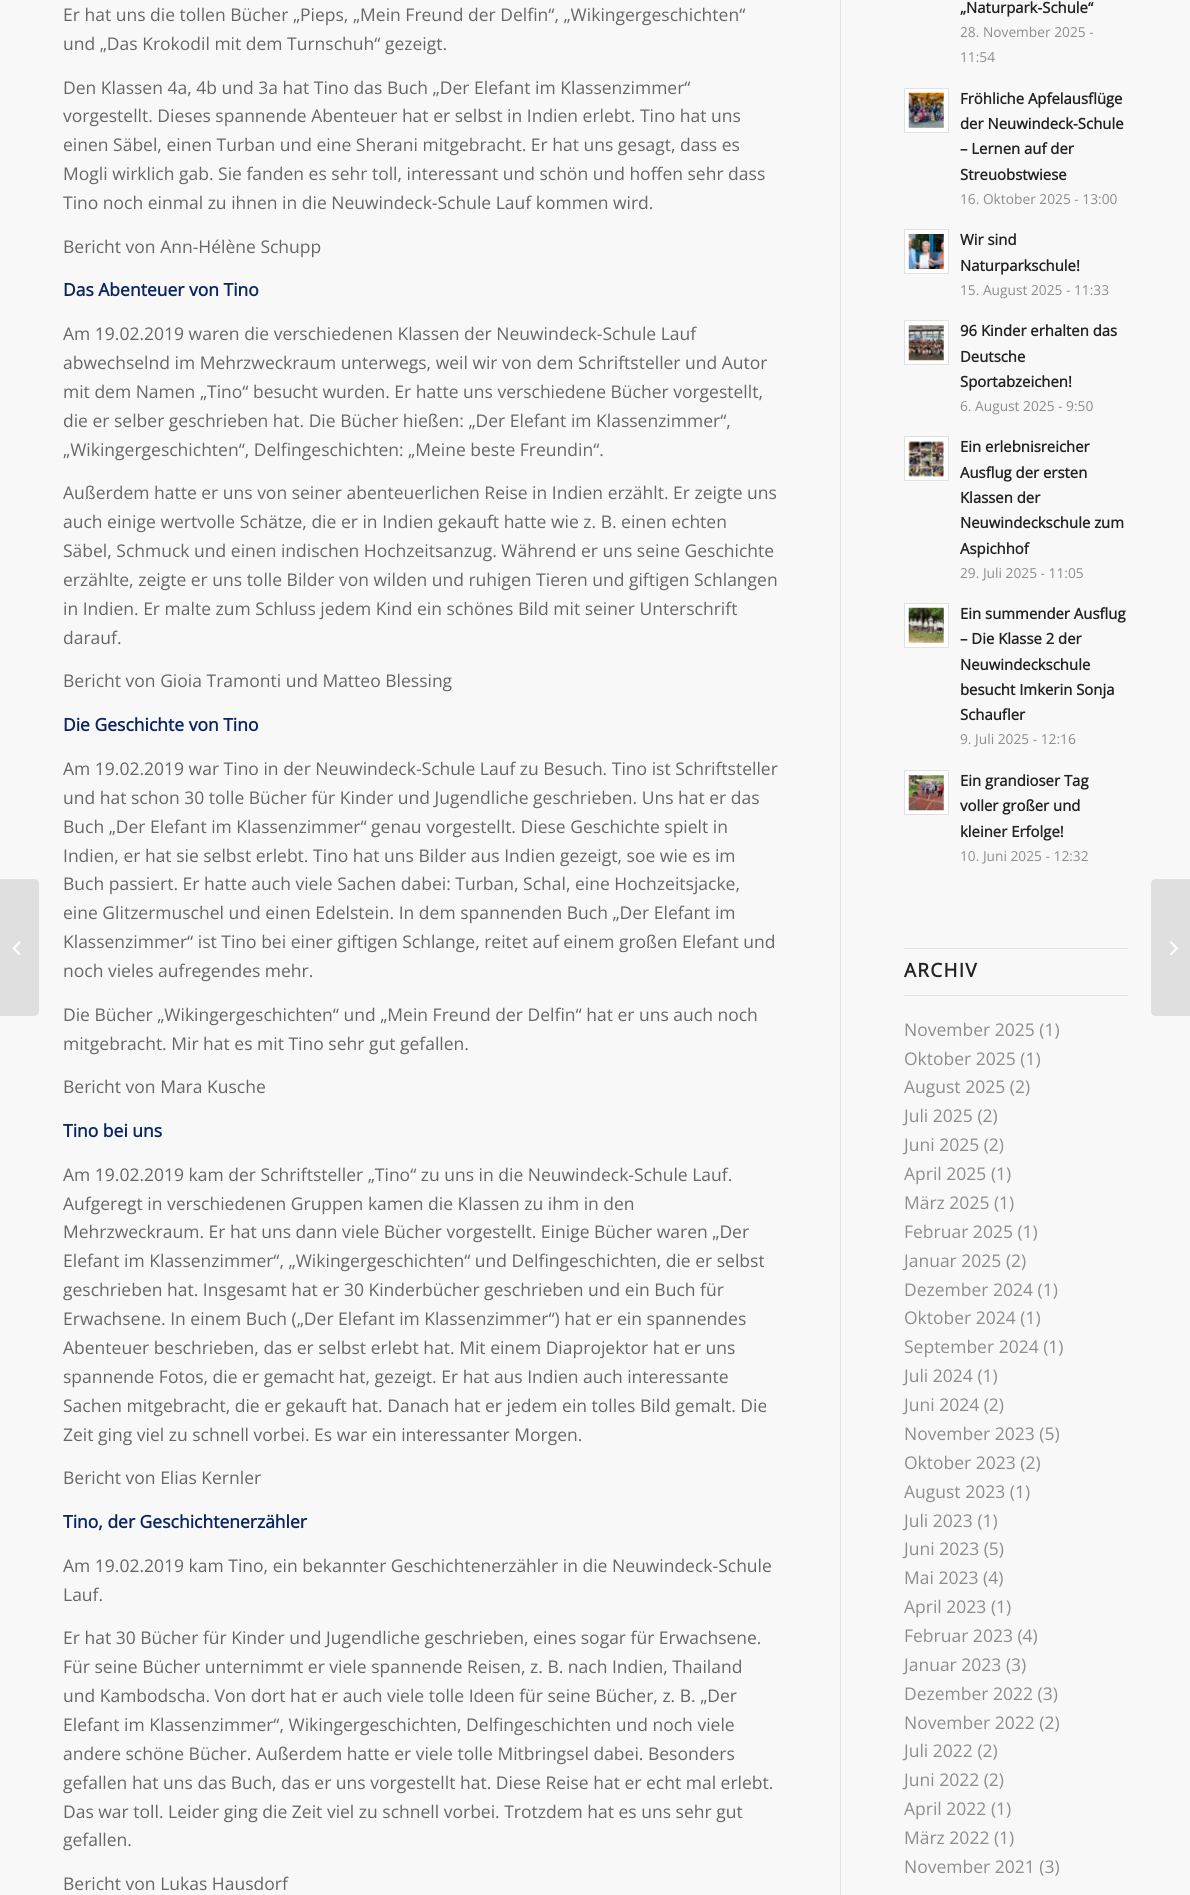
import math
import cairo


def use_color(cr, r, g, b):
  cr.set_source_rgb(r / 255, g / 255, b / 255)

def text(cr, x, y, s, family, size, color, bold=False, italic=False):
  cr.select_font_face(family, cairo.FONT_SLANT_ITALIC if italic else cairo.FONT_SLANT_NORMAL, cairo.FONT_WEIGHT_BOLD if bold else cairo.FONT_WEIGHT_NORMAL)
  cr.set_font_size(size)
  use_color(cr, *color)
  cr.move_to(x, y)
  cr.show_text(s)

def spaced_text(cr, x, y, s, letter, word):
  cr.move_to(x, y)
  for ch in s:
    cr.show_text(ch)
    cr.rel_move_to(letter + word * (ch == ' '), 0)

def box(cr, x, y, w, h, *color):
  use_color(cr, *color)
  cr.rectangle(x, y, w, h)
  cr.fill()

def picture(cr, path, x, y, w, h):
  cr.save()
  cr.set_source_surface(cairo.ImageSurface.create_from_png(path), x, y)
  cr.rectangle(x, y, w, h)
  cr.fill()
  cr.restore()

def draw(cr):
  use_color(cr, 248, 248, 248)
  cr.paint()
  use_color(cr, 223, 223, 223)
  cr.new_path()
  cr.move_to(0, 879)
  cr.line_to(34, 879)
  cr.curve_to(37, 879, 39, 881, 39, 884)
  cr.line_to(39, 1011)
  cr.curve_to(39, 1014, 37, 1016, 34, 1016)
  cr.line_to(0, 1016)
  cr.close_path()
  cr.fill()
  picture(cr, "img_01.png", 12, 941, 9, 14)
  box(cr, 840, 0, 1, 1895, 225, 225, 225)
  use_color(cr, 255, 255, 255)
  cr.rectangle(904.5, 88.5, 44, 44)
  cr.fill_preserve()
  use_color(cr, 225, 225, 225)
  cr.set_line_width(1)
  cr.stroke()
  picture(cr, "img_02.png", 908, 92, 36, 36)
  use_color(cr, 255, 255, 255)
  cr.rectangle(904.5, 229.5, 44, 44)
  cr.fill_preserve()
  use_color(cr, 225, 225, 225)
  cr.stroke()
  picture(cr, "img_03.png", 908, 234, 36, 35)
  use_color(cr, 255, 255, 255)
  cr.rectangle(904.5, 320.5, 44, 44)
  cr.fill_preserve()
  use_color(cr, 225, 225, 225)
  cr.stroke()
  picture(cr, "img_04.png", 908, 325, 36, 36)
  use_color(cr, 255, 255, 255)
  cr.rectangle(904.5, 436.5, 44, 44)
  cr.fill_preserve()
  use_color(cr, 225, 225, 225)
  cr.stroke()
  picture(cr, "img_05.png", 908, 441, 36, 36)
  use_color(cr, 255, 255, 255)
  cr.rectangle(904.5, 603.5, 44, 44)
  cr.fill_preserve()
  use_color(cr, 225, 225, 225)
  cr.stroke()
  picture(cr, "img_06.png", 908, 607, 36, 36)
  use_color(cr, 255, 255, 255)
  cr.rectangle(904.5, 770.5, 44, 44)
  cr.fill_preserve()
  use_color(cr, 225, 225, 225)
  cr.stroke()
  picture(cr, "img_07.png", 908, 775, 36, 36)
  box(cr, 904, 948, 224, 1, 225, 225, 225)
  box(cr, 904, 995, 224, 1, 225, 225, 225)
  use_color(cr, 223, 223, 223)
  cr.new_path()
  cr.move_to(1156, 879)
  cr.line_to(1190, 879)
  cr.line_to(1190, 1016)
  cr.line_to(1156, 1016)
  cr.curve_to(1153, 1016, 1151, 1014, 1151, 1011)
  cr.line_to(1151, 884)
  cr.curve_to(1151, 881, 1153, 879, 1156, 879)
  cr.close_path()
  cr.fill()
  picture(cr, "img_08.png", 1170, 941, 8, 14)
  text(cr, 63, 21, "Er hat uns die tollen Bücher „Pieps, „Mein Freund der Delfin“, „Wikingergeschichten“", "Open Sans", 17.5, (102, 102, 102))
  text(cr, 63, 50, "und „Das Krokodil mit dem Turnschuh“ gezeigt.", "Open Sans", 17.5, (102, 102, 102))
  text(cr, 63, 94, "Den Klassen 4a, 4b und 3a hat Tino das Buch „Der Elefant im Klassenzimmer“", "Open Sans", 17.5, (102, 102, 102))
  text(cr, 63, 122, "vorgestellt. Dieses spannende Abenteuer hat er selbst in Indien erlebt. Tino hat uns", "Open Sans", 17.5, (102, 102, 102))
  text(cr, 63, 151, "einen Säbel, einen Turban und eine Sherani mitgebracht. Er hat uns gesagt, dass es", "Open Sans", 17.5, (102, 102, 102))
  text(cr, 63, 180, "Mogli wirklich gab. Sie fanden es sehr toll, interessant und schön und hoffen sehr dass", "Open Sans", 17.5, (102, 102, 102))
  text(cr, 63, 209, "Tino noch einmal zu ihnen in die Neuwindeck-Schule Lauf kommen wird.", "Open Sans", 17.5, (102, 102, 102))
  text(cr, 63, 253, "Bericht von Ann-Hélène Schupp", "Open Sans", 17.5, (102, 102, 102))
  text(cr, 63, 296, "Das Abenteuer von Tino", "Open Sans", 17.5, (10, 37, 99), bold=True)
  text(cr, 63, 340, "Am 19.02.2019 waren die verschiedenen Klassen der Neuwindeck-Schule Lauf", "Open Sans", 17.5, (102, 102, 102))
  text(cr, 63, 369, "abwechselnd im Mehrzweckraum unterwegs, weil wir von dem Schriftsteller und Autor", "Open Sans", 17.5, (102, 102, 102))
  text(cr, 63, 398, "mit dem Namen „Tino“ besucht wurden. Er hatte uns verschiedene Bücher vorgestellt,", "Open Sans", 17.5, (102, 102, 102))
  text(cr, 63, 427, "die er selber geschrieben hat. Die Bücher hießen: „Der Elefant im Klassenzimmer“,", "Open Sans", 17.5, (102, 102, 102))
  text(cr, 63, 456, "„Wikingergeschichten“, Delfingeschichten: „Meine beste Freundin“.", "Open Sans", 17.5, (102, 102, 102))
  text(cr, 63, 499, "Außerdem hatte er uns von seiner abenteuerlichen Reise in Indien erzählt. Er zeigte uns", "Open Sans", 17.5, (102, 102, 102))
  text(cr, 63, 528, "auch einige wertvolle Schätze, die er in Indien gekauft hatte wie z. B. einen echten", "Open Sans", 17.5, (102, 102, 102))
  text(cr, 63, 557, "Säbel, Schmuck und einen indischen Hochzeitsanzug. Während er uns seine Geschichte", "Open Sans", 17.5, (102, 102, 102))
  text(cr, 63, 586, "erzählte, zeigte er uns tolle Bilder von wilden und ruhigen Tieren und giftigen Schlangen", "Open Sans", 17.5, (102, 102, 102))
  text(cr, 63, 615, "in Indien. Er malte zum Schluss jedem Kind ein schönes Bild mit seiner Unterschrift", "Open Sans", 17.5, (102, 102, 102))
  text(cr, 63, 644, "darauf.", "Open Sans", 17.5, (102, 102, 102))
  text(cr, 63, 687, "Bericht von Gioia Tramonti und Matteo Blessing", "Open Sans", 17.5, (102, 102, 102))
  text(cr, 63, 731, "Die Geschichte von Tino", "Open Sans", 17.5, (10, 37, 99), bold=True)
  text(cr, 63, 775, "Am 19.02.2019 war Tino in der Neuwindeck-Schule Lauf zu Besuch. Tino ist Schriftsteller", "Open Sans", 17.5, (102, 102, 102))
  text(cr, 63, 804, "und hat schon 30 tolle Bücher für Kinder und Jugendliche geschrieben. Uns hat er das", "Open Sans", 17.5, (102, 102, 102))
  text(cr, 63, 833, "Buch „Der Elefant im Klassenzimmer“ genau vorgestellt. Diese Geschichte spielt in", "Open Sans", 17.5, (102, 102, 102))
  text(cr, 63, 862, "Indien, er hat sie selbst erlebt. Tino hat uns Bilder aus Indien gezeigt, soe wie es im", "Open Sans", 17.5, (102, 102, 102))
  text(cr, 63, 890, "Buch passiert. Er hatte auch viele Sachen dabei: Turban, Schal, eine Hochzeitsjacke,", "Open Sans", 17.5, (102, 102, 102))
  text(cr, 63, 919, "eine Glitzermuschel und einen Edelstein. In dem spannenden Buch „Der Elefant im", "Open Sans", 17.5, (102, 102, 102))
  text(cr, 63, 948, "Klassenzimmer“ ist Tino bei einer giftigen Schlange, reitet auf einem großen Elefant und", "Open Sans", 17.5, (102, 102, 102))
  text(cr, 63, 977, "noch vieles aufregendes mehr.", "Open Sans", 17.5, (102, 102, 102))
  text(cr, 63, 1021, "Die Bücher „Wikingergeschichten“ und „Mein Freund der Delfin“ hat er uns auch noch", "Open Sans", 17.5, (102, 102, 102))
  text(cr, 63, 1050, "mitgebracht. Mir hat es mit Tino sehr gut gefallen.", "Open Sans", 17.5, (102, 102, 102))
  text(cr, 63, 1093, "Bericht von Mara Kusche", "Open Sans", 17.5, (102, 102, 102))
  text(cr, 63, 1137, "Tino bei uns", "Open Sans", 17.5, (10, 37, 99), bold=True)
  text(cr, 63, 1181, "Am 19.02.2019 kam der Schriftsteller „Tino“ zu uns in die Neuwindeck-Schule Lauf.", "Open Sans", 17.5, (102, 102, 102))
  text(cr, 63, 1210, "Aufgeregt in verschiedenen Gruppen kamen die Klassen zu ihm in den", "Open Sans", 17.5, (102, 102, 102))
  text(cr, 63, 1238, "Mehrzweckraum. Er hat uns dann viele Bücher vorgestellt. Einige Bücher waren „Der", "Open Sans", 17.5, (102, 102, 102))
  text(cr, 63, 1267, "Elefant im Klassenzimmer“, „Wikingergeschichten“ und Delfingeschichten, die er selbst", "Open Sans", 17.5, (102, 102, 102))
  text(cr, 63, 1296, "geschrieben hat. Insgesamt hat er 30 Kinderbücher geschrieben und ein Buch für", "Open Sans", 17.5, (102, 102, 102))
  text(cr, 63, 1325, "Erwachsene. In einem Buch („Der Elefant im Klassenzimmer“) hat er ein spannendes", "Open Sans", 17.5, (102, 102, 102))
  text(cr, 63, 1354, "Abenteuer beschrieben, das er selbst erlebt hat. Mit einem Diaprojektor hat er uns", "Open Sans", 17.5, (102, 102, 102))
  text(cr, 63, 1383, "spannende Fotos, die er gemacht hat, gezeigt. Er hat aus Indien auch interessante", "Open Sans", 17.5, (102, 102, 102))
  text(cr, 63, 1412, "Sachen mitgebracht, die er gekauft hat. Danach hat er jedem ein tolles Bild gemalt. Die", "Open Sans", 17.5, (102, 102, 102))
  text(cr, 63, 1441, "Zeit ging viel zu schnell vorbei. Es war ein interessanter Morgen.", "Open Sans", 17.5, (102, 102, 102))
  text(cr, 63, 1484, "Bericht von Elias Kernler", "Open Sans", 17.5, (102, 102, 102))
  text(cr, 63, 1528, "Tino, der Geschichtenerzähler", "Open Sans", 17.5, (10, 37, 99), bold=True)
  text(cr, 63, 1572, "Am 19.02.2019 kam Tino, ein bekannter Geschichtenerzähler in die Neuwindeck-Schule", "Open Sans", 17.5, (102, 102, 102))
  text(cr, 63, 1601, "Lauf.", "Open Sans", 17.5, (102, 102, 102))
  text(cr, 63, 1644, "Er hat 30 Bücher für Kinder und Jugendliche geschrieben, eines sogar für Erwachsene.", "Open Sans", 17.5, (102, 102, 102))
  text(cr, 63, 1673, "Für seine Bücher unternimmt er viele spannende Reisen, z. B. nach Indien, Thailand", "Open Sans", 17.5, (102, 102, 102))
  text(cr, 63, 1702, "und Kambodscha. Von dort hat er auch viele tolle Ideen für seine Bücher, z. B. „Der", "Open Sans", 17.5, (102, 102, 102))
  text(cr, 63, 1731, "Elefant im Klassenzimmer“, Wikingergeschichten, Delfingeschichten und noch viele", "Open Sans", 17.5, (102, 102, 102))
  text(cr, 63, 1760, "andere schöne Bücher. Außerdem hatte er viele tolle Mitbringsel dabei. Besonders", "Open Sans", 17.5, (102, 102, 102))
  text(cr, 63, 1789, "gefallen hat uns das Buch, das er uns vorgestellt hat. Diese Reise hat er echt mal erlebt.", "Open Sans", 17.5, (102, 102, 102))
  text(cr, 63, 1818, "Das war toll. Leider ging die Zeit viel zu schnell vorbei. Trotzdem hat es uns sehr gut", "Open Sans", 17.5, (102, 102, 102))
  text(cr, 63, 1846, "gefallen.", "Open Sans", 17.5, (102, 102, 102))
  text(cr, 63, 1890, "Bericht von Lukas Hausdorf", "Open Sans", 17.5, (102, 102, 102))
  text(cr, 960, 13, "„Naturpark-Schule“", "Open Sans", 14.9, (34, 34, 34), bold=True)
  text(cr, 960, 37, "28. November 2025 -", "Open Sans", 13.75, (141, 141, 141))
  text(cr, 960, 62, "11:54", "Open Sans", 13.75, (141, 141, 141))
  text(cr, 960, 104, "Fröhliche Apfelausflüge", "Open Sans", 14.9, (34, 34, 34), bold=True)
  text(cr, 960, 129, "der Neuwindeck-Schule", "Open Sans", 14.9, (34, 34, 34), bold=True)
  text(cr, 960, 154, "– Lernen auf der", "Open Sans", 14.9, (34, 34, 34), bold=True)
  text(cr, 960, 180, "Streuobstwiese", "Open Sans", 14.9, (34, 34, 34), bold=True)
  text(cr, 960, 204, "16. Oktober 2025 - 13:00", "Open Sans", 13.75, (141, 141, 141))
  text(cr, 960, 245, "Wir sind", "Open Sans", 14.9, (34, 34, 34), bold=True)
  text(cr, 960, 271, "Naturparkschule!", "Open Sans", 14.9, (34, 34, 34), bold=True)
  text(cr, 960, 295, "15. August 2025 - 11:33", "Open Sans", 13.75, (141, 141, 141))
  text(cr, 960, 336, "96 Kinder erhalten das", "Open Sans", 14.9, (34, 34, 34), bold=True)
  text(cr, 960, 362, "Deutsche", "Open Sans", 14.9, (34, 34, 34), bold=True)
  text(cr, 960, 387, "Sportabzeichen!", "Open Sans", 14.9, (34, 34, 34), bold=True)
  text(cr, 960, 411, "6. August 2025 - 9:50", "Open Sans", 13.75, (141, 141, 141))
  text(cr, 960, 452, "Ein erlebnisreicher", "Open Sans", 14.9, (34, 34, 34), bold=True)
  text(cr, 960, 478, "Ausflug der ersten", "Open Sans", 14.9, (34, 34, 34), bold=True)
  text(cr, 960, 503, "Klassen der", "Open Sans", 14.9, (34, 34, 34), bold=True)
  text(cr, 960, 528, "Neuwindeckschule zum", "Open Sans", 14.9, (34, 34, 34), bold=True)
  text(cr, 960, 554, "Aspichhof", "Open Sans", 14.9, (34, 34, 34), bold=True)
  text(cr, 960, 578, "29. Juli 2025 - 11:05", "Open Sans", 13.75, (141, 141, 141))
  text(cr, 960, 619, "Ein summender Ausflug", "Open Sans", 14.9, (34, 34, 34), bold=True)
  text(cr, 960, 644, "– Die Klasse 2 der", "Open Sans", 14.9, (34, 34, 34), bold=True)
  text(cr, 960, 670, "Neuwindeckschule", "Open Sans", 14.9, (34, 34, 34), bold=True)
  text(cr, 960, 695, "besucht Imkerin Sonja", "Open Sans", 14.9, (34, 34, 34), bold=True)
  text(cr, 960, 720, "Schaufler", "Open Sans", 14.9, (34, 34, 34), bold=True)
  text(cr, 960, 744, "9. Juli 2025 - 12:16", "Open Sans", 13.75, (141, 141, 141))
  text(cr, 960, 786, "Ein grandioser Tag", "Open Sans", 14.9, (34, 34, 34), bold=True)
  text(cr, 960, 811, "voller großer und", "Open Sans", 14.9, (34, 34, 34), bold=True)
  text(cr, 960, 837, "kleiner Erfolge!", "Open Sans", 14.9, (34, 34, 34), bold=True)
  text(cr, 960, 861, "10. Juni 2025 - 12:32", "Open Sans", 13.75, (141, 141, 141))
  cr.select_font_face("Open Sans", cairo.FONT_SLANT_NORMAL, cairo.FONT_WEIGHT_BOLD)
  cr.set_font_size(19)
  use_color(cr, 34, 34, 34)
  spaced_text(cr, 904, 977, "ARCHIV", 1.25, 0)
  text(cr, 904, 1036, "November 2025 (1)", "Open Sans", 17.5, (141, 141, 141))
  text(cr, 904, 1065, "Oktober 2025 (1)", "Open Sans", 17.5, (141, 141, 141))
  text(cr, 904, 1093, "August 2025 (2)", "Open Sans", 17.5, (141, 141, 141))
  text(cr, 904, 1122, "Juli 2025 (2)", "Open Sans", 17.5, (141, 141, 141))
  text(cr, 904, 1151, "Juni 2025 (2)", "Open Sans", 17.5, (141, 141, 141))
  text(cr, 904, 1180, "April 2025 (1)", "Open Sans", 17.5, (141, 141, 141))
  text(cr, 904, 1209, "März 2025 (1)", "Open Sans", 17.5, (141, 141, 141))
  text(cr, 904, 1238, "Februar 2025 (1)", "Open Sans", 17.5, (141, 141, 141))
  text(cr, 904, 1267, "Januar 2025 (2)", "Open Sans", 17.5, (141, 141, 141))
  text(cr, 904, 1296, "Dezember 2024 (1)", "Open Sans", 17.5, (141, 141, 141))
  text(cr, 904, 1324, "Oktober 2024 (1)", "Open Sans", 17.5, (141, 141, 141))
  text(cr, 904, 1353, "September 2024 (1)", "Open Sans", 17.5, (141, 141, 141))
  text(cr, 904, 1382, "Juli 2024 (1)", "Open Sans", 17.5, (141, 141, 141))
  text(cr, 904, 1411, "Juni 2024 (2)", "Open Sans", 17.5, (141, 141, 141))
  text(cr, 904, 1440, "November 2023 (5)", "Open Sans", 17.5, (141, 141, 141))
  text(cr, 904, 1469, "Oktober 2023 (2)", "Open Sans", 17.5, (141, 141, 141))
  text(cr, 904, 1498, "August 2023 (1)", "Open Sans", 17.5, (141, 141, 141))
  text(cr, 904, 1527, "Juli 2023 (1)", "Open Sans", 17.5, (141, 141, 141))
  text(cr, 904, 1555, "Juni 2023 (5)", "Open Sans", 17.5, (141, 141, 141))
  text(cr, 904, 1584, "Mai 2023 (4)", "Open Sans", 17.5, (141, 141, 141))
  text(cr, 904, 1613, "April 2023 (1)", "Open Sans", 17.5, (141, 141, 141))
  text(cr, 904, 1642, "Februar 2023 (4)", "Open Sans", 17.5, (141, 141, 141))
  text(cr, 904, 1671, "Januar 2023 (3)", "Open Sans", 17.5, (141, 141, 141))
  text(cr, 904, 1700, "Dezember 2022 (3)", "Open Sans", 17.5, (141, 141, 141))
  text(cr, 904, 1729, "November 2022 (2)", "Open Sans", 17.5, (141, 141, 141))
  text(cr, 904, 1757, "Juli 2022 (2)", "Open Sans", 17.5, (141, 141, 141))
  text(cr, 904, 1786, "Juni 2022 (2)", "Open Sans", 17.5, (141, 141, 141))
  text(cr, 904, 1815, "April 2022 (1)", "Open Sans", 17.5, (141, 141, 141))
  text(cr, 904, 1844, "März 2022 (1)", "Open Sans", 17.5, (141, 141, 141))
  text(cr, 904, 1873, "November 2021 (3)", "Open Sans", 17.5, (141, 141, 141))


surface = cairo.ImageSurface(cairo.FORMAT_RGB24, 1190, 1895)
cr = cairo.Context(surface)
options = cairo.FontOptions()
options.set_hint_metrics(cairo.HINT_METRICS_OFF)
options.set_hint_style(cairo.HINT_STYLE_NONE)
cr.set_font_options(options)
cr.set_miter_limit(4)
draw(cr)
surface.write_to_png("out.png")
